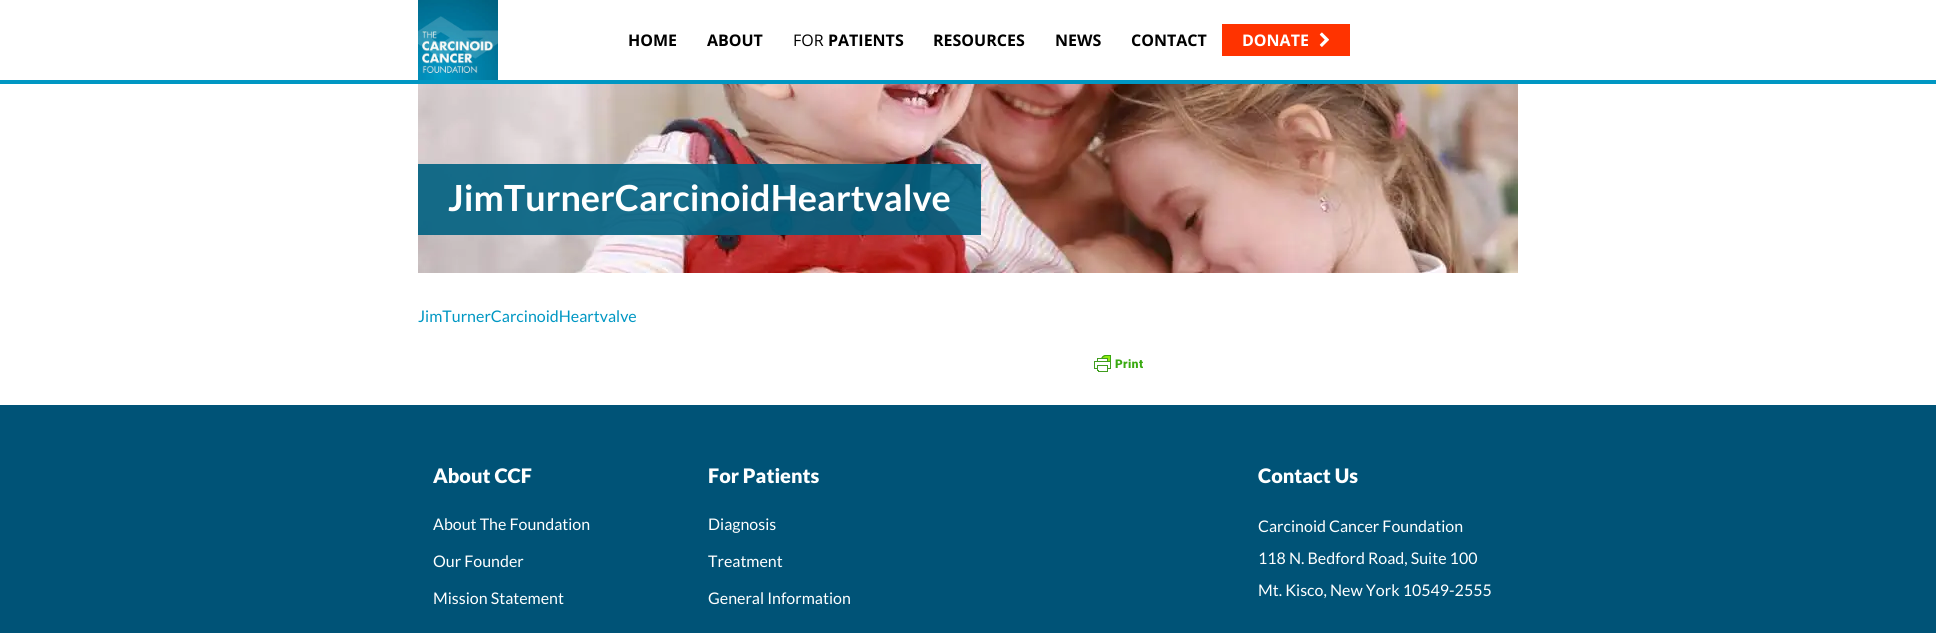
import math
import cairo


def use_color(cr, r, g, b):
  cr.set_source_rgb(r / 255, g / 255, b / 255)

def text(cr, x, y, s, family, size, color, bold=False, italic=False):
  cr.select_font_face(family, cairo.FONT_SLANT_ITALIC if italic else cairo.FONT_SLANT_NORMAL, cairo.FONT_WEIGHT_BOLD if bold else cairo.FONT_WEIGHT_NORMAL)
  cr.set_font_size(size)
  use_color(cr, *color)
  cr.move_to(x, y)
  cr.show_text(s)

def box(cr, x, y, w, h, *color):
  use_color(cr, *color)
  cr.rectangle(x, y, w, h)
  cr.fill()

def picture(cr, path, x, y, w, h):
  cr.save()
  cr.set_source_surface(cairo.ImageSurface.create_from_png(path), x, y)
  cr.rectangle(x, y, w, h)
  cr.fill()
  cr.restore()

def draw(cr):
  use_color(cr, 255, 255, 255)
  cr.paint()
  box(cr, 0, 80, 1936, 4, 0, 151, 195)
  picture(cr, "img_01.png", 418, 0, 80, 80)
  box(cr, 1222, 24, 128, 32, 255, 51, 0)
  picture(cr, "img_02.png", 1319, 32, 10, 15)
  picture(cr, "img_03.png", 418, 84, 1100, 189)
  cr.set_source_rgba(0, 0.38, 0.506, 0.9)
  cr.rectangle(418, 164, 563, 71)
  cr.fill()
  picture(cr, "img_04.png", 1094, 355, 49, 17)
  box(cr, 0, 405, 1936, 228, 0, 83, 119)
  text(cr, 628, 46, "HOME", "Open Sans", 16, (0, 0, 0), bold=True)
  text(cr, 707, 46, "ABOUT", "Open Sans", 16, (0, 0, 0), bold=True)
  text(cr, 793, 46, "FOR", "Open Sans", 16, (0, 0, 0))
  text(cr, 828, 46, "PATIENTS", "Open Sans", 16, (0, 0, 0), bold=True)
  text(cr, 933, 46, "RESOURCES", "Open Sans", 16, (0, 0, 0), bold=True)
  text(cr, 1055, 46, "NEWS", "Open Sans", 16, (0, 0, 0), bold=True)
  text(cr, 1131, 46, "CONTACT", "Open Sans", 16, (0, 0, 0), bold=True)
  text(cr, 1242, 46, "DONATE", "Open Sans", 16, (255, 255, 255), bold=True)
  text(cr, 448, 211, "JimTurnerCarcinoidHeartvalve", "Lato", 36, (255, 255, 255), bold=True)
  text(cr, 418, 322, "JimTurnerCarcinoidHeartvalve", "Lato", 16, (0, 151, 195))
  text(cr, 433, 483, "About CCF", "Lato Black", 20, (255, 255, 255))
  text(cr, 433, 530, "About The Foundation", "Lato", 16, (255, 255, 255))
  text(cr, 433, 567, "Our Founder", "Lato", 16, (255, 255, 255))
  text(cr, 433, 604, "Mission Statement", "Lato", 16, (255, 255, 255))
  text(cr, 708, 483, "For Patients", "Lato Black", 20, (255, 255, 255))
  text(cr, 708, 530, "Diagnosis", "Lato", 16, (255, 255, 255))
  text(cr, 708, 567, "Treatment", "Lato", 16, (255, 255, 255))
  text(cr, 708, 604, "General Information", "Lato", 16, (255, 255, 255))
  text(cr, 1258, 483, "Contact Us", "Lato Black", 20, (255, 255, 255))
  text(cr, 1258, 532, "Carcinoid Cancer Foundation", "Lato", 16, (255, 255, 255))
  text(cr, 1258, 564, "118 N. Bedford Road, Suite 100", "Lato", 16, (255, 255, 255))
  text(cr, 1258, 596, "Mt. Kisco, New York 10549-2555", "Lato", 16, (255, 255, 255))


surface = cairo.ImageSurface(cairo.FORMAT_RGB24, 1936, 633)
cr = cairo.Context(surface)
options = cairo.FontOptions()
options.set_hint_metrics(cairo.HINT_METRICS_OFF)
options.set_hint_style(cairo.HINT_STYLE_NONE)
cr.set_font_options(options)
cr.set_miter_limit(4)
draw(cr)
surface.write_to_png("out.png")
